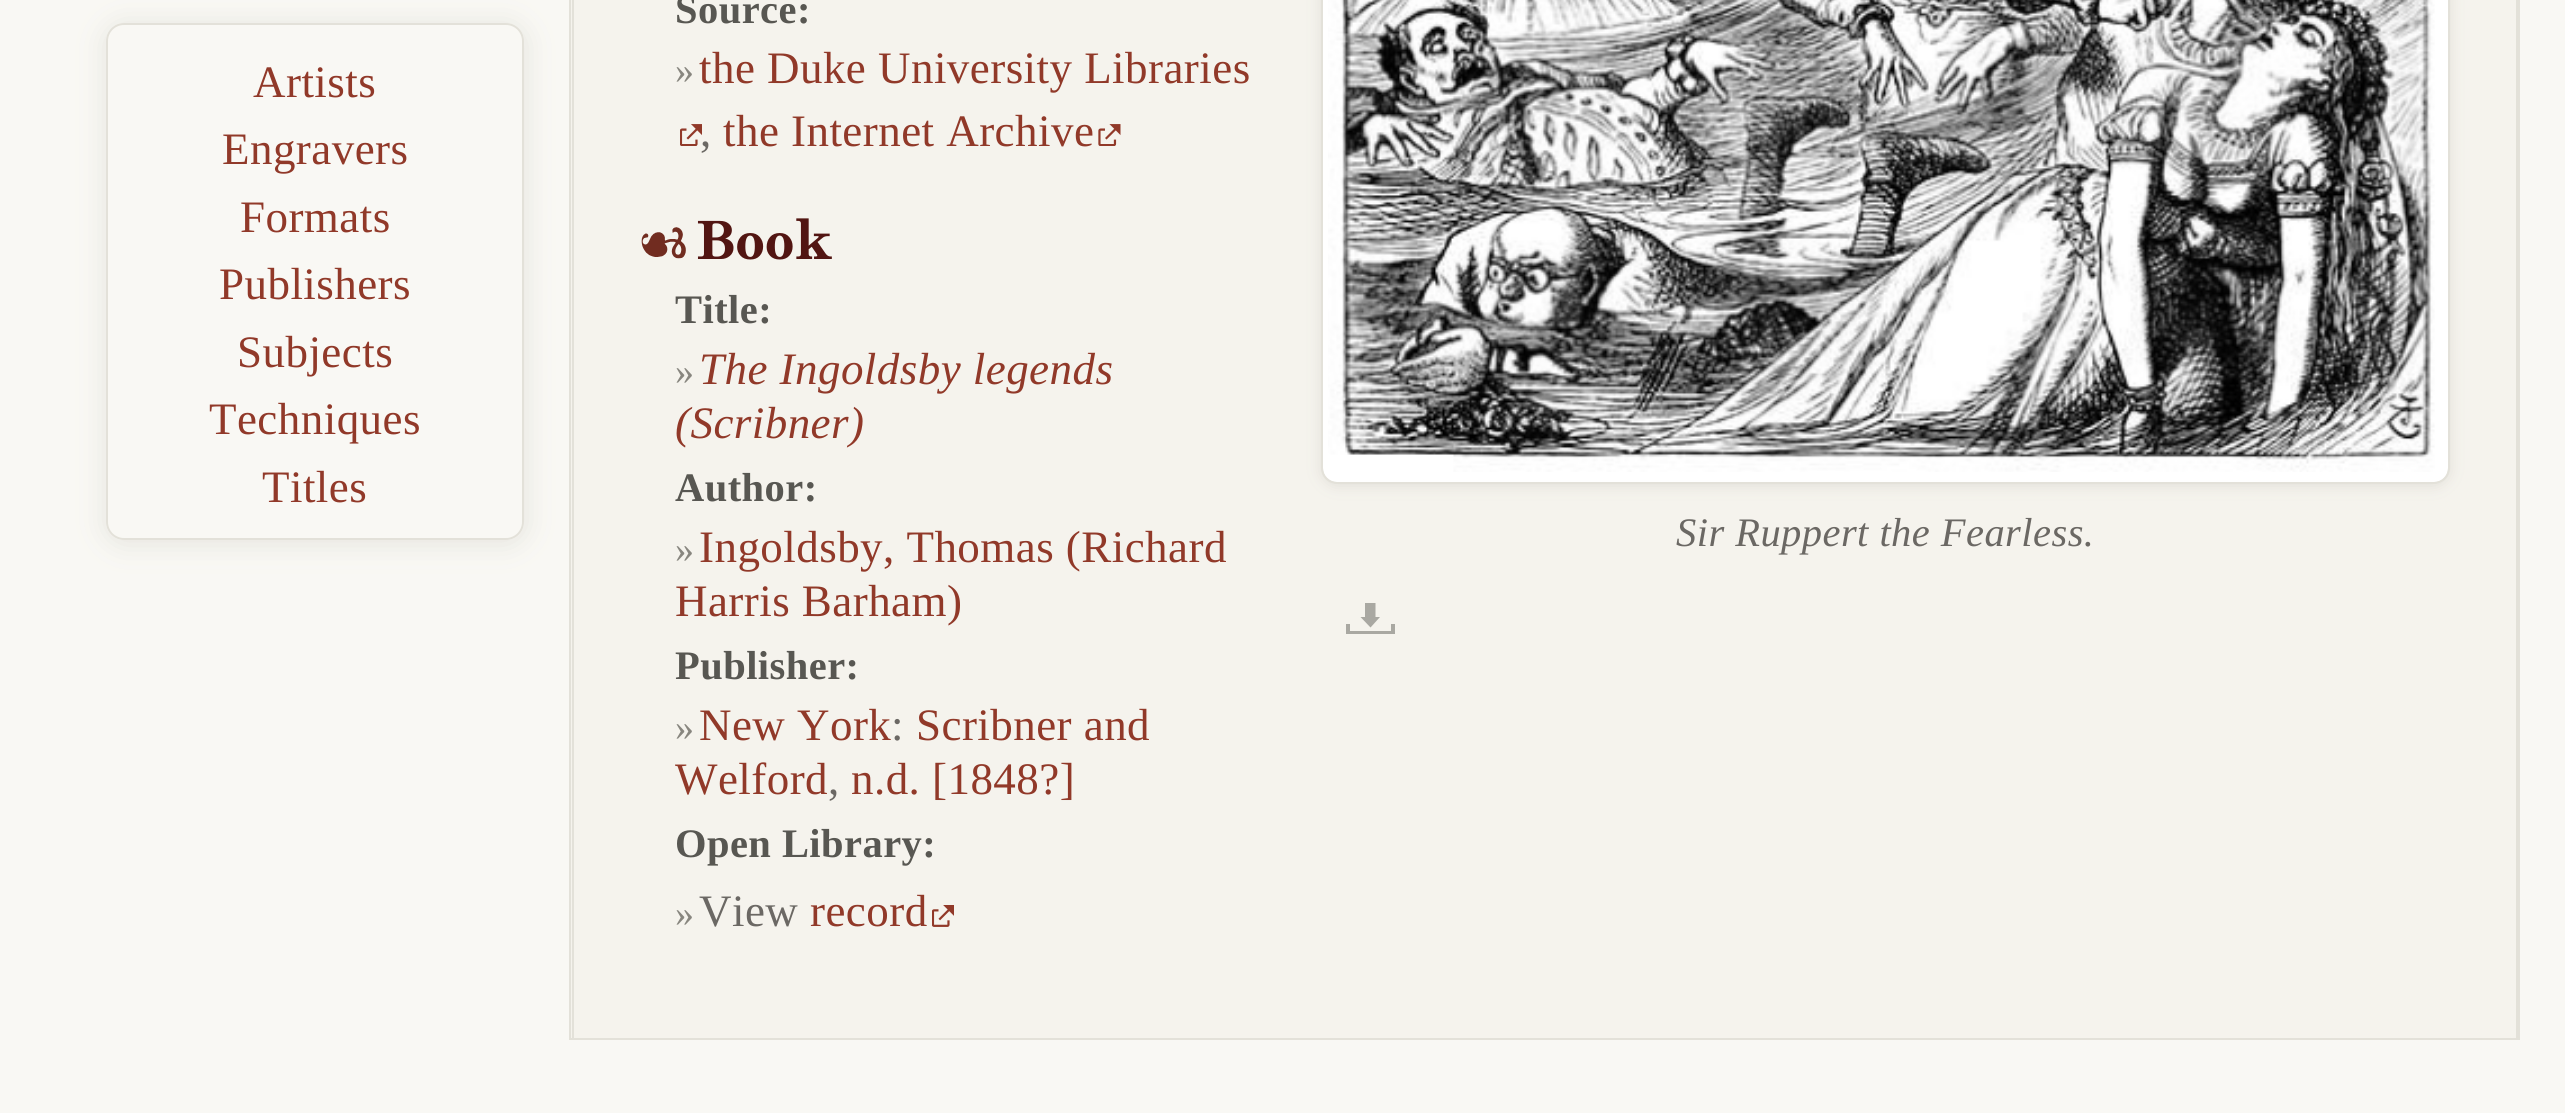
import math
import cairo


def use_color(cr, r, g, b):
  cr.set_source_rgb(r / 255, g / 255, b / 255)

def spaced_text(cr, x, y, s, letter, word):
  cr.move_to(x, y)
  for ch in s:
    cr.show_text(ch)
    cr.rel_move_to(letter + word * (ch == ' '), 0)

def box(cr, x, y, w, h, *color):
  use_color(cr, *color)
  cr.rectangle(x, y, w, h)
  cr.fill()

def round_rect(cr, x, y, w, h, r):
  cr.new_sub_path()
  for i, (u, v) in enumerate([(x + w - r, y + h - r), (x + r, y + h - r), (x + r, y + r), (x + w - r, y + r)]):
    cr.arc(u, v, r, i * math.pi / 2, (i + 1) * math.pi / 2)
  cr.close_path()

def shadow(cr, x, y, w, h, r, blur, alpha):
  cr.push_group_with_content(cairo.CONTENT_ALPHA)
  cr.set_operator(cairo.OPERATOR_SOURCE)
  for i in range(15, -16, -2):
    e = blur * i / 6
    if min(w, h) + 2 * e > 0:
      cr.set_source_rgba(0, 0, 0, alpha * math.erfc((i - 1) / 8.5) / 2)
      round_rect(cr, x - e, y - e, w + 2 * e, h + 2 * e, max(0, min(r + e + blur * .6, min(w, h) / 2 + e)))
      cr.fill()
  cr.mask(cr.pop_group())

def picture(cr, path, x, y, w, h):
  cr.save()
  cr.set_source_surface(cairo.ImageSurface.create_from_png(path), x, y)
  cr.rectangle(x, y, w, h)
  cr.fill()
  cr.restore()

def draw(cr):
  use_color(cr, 249, 248, 244)
  cr.paint()
  cr.save()
  cr.set_fill_rule(cairo.FILL_RULE_EVEN_ODD)
  cr.new_path()
  cr.move_to(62, 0)
  cr.line_to(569, 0)
  cr.line_to(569, 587)
  cr.line_to(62, 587)
  cr.close_path()
  cr.move_to(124, 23)
  cr.line_to(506, 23)
  cr.curve_to(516, 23, 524, 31, 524, 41)
  cr.line_to(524, 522)
  cr.curve_to(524, 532, 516, 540, 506, 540)
  cr.line_to(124, 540)
  cr.curve_to(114, 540, 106, 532, 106, 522)
  cr.line_to(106, 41)
  cr.curve_to(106, 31, 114, 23, 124, 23)
  cr.close_path()
  cr.clip()
  use_color(cr, 231, 230, 224)
  shadow(cr, 104, 23, 423, 522, 20, 13.5, 1)
  cr.restore()
  round_rect(cr, 107, 24, 416, 515, 17)
  use_color(cr, 227, 225, 217)
  cr.stroke()
  box(cr, 571, 0, 1945, 1038, 245, 243, 237)
  cr.rectangle(570, -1, 1949, 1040)
  use_color(cr, 227, 225, 217)
  cr.stroke()
  box(cr, 2516, 0, 2, 1040, 227, 225, 217)
  box(cr, 572, 0, 2, 1040, 227, 225, 217)
  picture(cr, "img_01.png", 680, 124, 22, 22)
  picture(cr, "img_02.png", 1098, 124, 23, 22)
  picture(cr, "img_03.png", 641, 227, 45, 32)
  picture(cr, "img_04.png", 932, 905, 22, 22)
  use_color(cr, 226, 224, 217)
  shadow(cr, 1321, -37, 1129, 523, 16, 7, 1)
  use_color(cr, 255, 255, 255)
  round_rect(cr, 1323, -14, 1125, 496, 14)
  cr.fill()
  round_rect(cr, 1322, -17, 1127, 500, 15)
  use_color(cr, 227, 225, 217)
  cr.stroke()
  picture(cr, "img_05.png", 1328, 0, 1107, 472)
  use_color(cr, 169, 168, 162)
  cr.new_path()
  cr.move_to(1380, 617)
  cr.line_to(1375.5, 617)
  cr.line_to(1375.5, 603)
  cr.line_to(1365, 603)
  cr.line_to(1365, 617)
  cr.line_to(1360.5, 617)
  cr.line_to(1370.5, 627.5)
  cr.close_path()
  cr.fill()
  cr.new_path()
  cr.move_to(1391, 624)
  cr.line_to(1391, 631)
  cr.line_to(1350, 631)
  cr.line_to(1350, 624)
  cr.line_to(1346, 624)
  cr.line_to(1346, 634)
  cr.line_to(1395, 634)
  cr.line_to(1395, 624)
  cr.close_path()
  cr.fill()
  cr.select_font_face("Liberation Serif")
  cr.set_font_size(45)
  use_color(cr, 145, 57, 41)
  spaced_text(cr, 253, 97, "Artists", 0.45, 0)
  spaced_text(cr, 222, 164, "Engravers", 0.45, 0)
  spaced_text(cr, 240, 232, "Formats", 0.45, 0)
  spaced_text(cr, 219, 299, "Publishers", 0.45, 0)
  spaced_text(cr, 237, 367, "Subjects", 0.45, 0)
  spaced_text(cr, 209, 434, "Techniques", 0.45, 0)
  spaced_text(cr, 262, 502, "Titles", 0.45, 0)
  cr.select_font_face("Liberation Serif", cairo.FONT_SLANT_NORMAL, cairo.FONT_WEIGHT_BOLD)
  cr.set_font_size(40.5)
  use_color(cr, 88, 87, 82)
  spaced_text(cr, 675, 23, "Source:", 0.45, 0)
  cr.select_font_face("Liberation Serif")
  cr.set_font_size(38)
  use_color(cr, 136, 134, 127)
  spaced_text(cr, 675, 83, "»", 0.45, 0)
  cr.set_font_size(45)
  use_color(cr, 145, 57, 41)
  spaced_text(cr, 699, 83, "the Duke University Libraries", 0.45, 0)
  use_color(cr, 107, 104, 100)
  spaced_text(cr, 700, 146, ",", 0.45, 0)
  use_color(cr, 145, 57, 41)
  spaced_text(cr, 723, 146, "the Internet Archive", 0.45, 0)
  cr.select_font_face("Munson", cairo.FONT_SLANT_NORMAL, cairo.FONT_WEIGHT_BOLD)
  cr.set_font_size(52)
  use_color(cr, 82, 21, 18)
  spaced_text(cr, 695, 259, "Book", 0.45, 0)
  cr.select_font_face("Liberation Serif", cairo.FONT_SLANT_NORMAL, cairo.FONT_WEIGHT_BOLD)
  cr.set_font_size(40.5)
  use_color(cr, 88, 87, 82)
  spaced_text(cr, 675, 323, "Title:", 0.45, 0)
  cr.select_font_face("Liberation Serif")
  cr.set_font_size(38)
  use_color(cr, 136, 134, 127)
  spaced_text(cr, 675, 384, "»", 0.45, 0)
  cr.select_font_face("Liberation Serif", cairo.FONT_SLANT_ITALIC)
  cr.set_font_size(45)
  use_color(cr, 145, 57, 41)
  spaced_text(cr, 699, 384, "The Ingoldsby legends", 0.45, 0)
  spaced_text(cr, 675, 438, "(Scribner)", 0.45, 0)
  cr.select_font_face("Liberation Serif", cairo.FONT_SLANT_NORMAL, cairo.FONT_WEIGHT_BOLD)
  cr.set_font_size(40.5)
  use_color(cr, 88, 87, 82)
  spaced_text(cr, 675, 501, "Author:", 0.45, 0)
  cr.select_font_face("Liberation Serif")
  cr.set_font_size(38)
  use_color(cr, 136, 134, 127)
  spaced_text(cr, 675, 562, "»", 0.45, 0)
  cr.set_font_size(45)
  use_color(cr, 145, 57, 41)
  spaced_text(cr, 699, 562, "Ingoldsby, Thomas (Richard", 0.45, 0)
  spaced_text(cr, 675, 616, "Harris Barham)", 0.45, 0)
  cr.select_font_face("Liberation Serif", cairo.FONT_SLANT_NORMAL, cairo.FONT_WEIGHT_BOLD)
  cr.set_font_size(40.5)
  use_color(cr, 88, 87, 82)
  spaced_text(cr, 675, 679, "Publisher:", 0.45, 0)
  cr.select_font_face("Liberation Serif")
  cr.set_font_size(38)
  use_color(cr, 136, 134, 127)
  spaced_text(cr, 675, 740, "»", 0.45, 0)
  cr.set_font_size(45)
  use_color(cr, 145, 57, 41)
  spaced_text(cr, 699, 740, "New York", 0.45, 0)
  use_color(cr, 107, 104, 100)
  spaced_text(cr, 891, 740, ":", 0.45, 0)
  use_color(cr, 145, 57, 41)
  spaced_text(cr, 916, 740, "Scribner and", 0.45, 0)
  spaced_text(cr, 675, 794, "Welford", 0.45, 0)
  use_color(cr, 107, 104, 100)
  spaced_text(cr, 828, 794, ",", 0.45, 0)
  use_color(cr, 145, 57, 41)
  spaced_text(cr, 851, 794, "n.d. [1848?]", 0.45, 0)
  cr.select_font_face("Liberation Serif", cairo.FONT_SLANT_NORMAL, cairo.FONT_WEIGHT_BOLD)
  cr.set_font_size(40.5)
  use_color(cr, 88, 87, 82)
  spaced_text(cr, 675, 857, "Open Library:", 0.45, 0)
  cr.select_font_face("Liberation Serif")
  cr.set_font_size(38)
  use_color(cr, 136, 134, 127)
  spaced_text(cr, 675, 926, "»", 0.45, 0)
  cr.set_font_size(45)
  use_color(cr, 107, 104, 100)
  spaced_text(cr, 699, 926, "View", 0.45, 0)
  use_color(cr, 145, 57, 41)
  spaced_text(cr, 810, 926, "record", 0.45, 0)
  cr.select_font_face("Liberation Serif", cairo.FONT_SLANT_ITALIC)
  cr.set_font_size(40.5)
  use_color(cr, 107, 104, 100)
  spaced_text(cr, 1676, 546, "Sir Ruppert the Fearless.", 0.45, 0)


surface = cairo.ImageSurface(cairo.FORMAT_RGB24, 2565, 1113)
cr = cairo.Context(surface)
options = cairo.FontOptions()
options.set_hint_metrics(cairo.HINT_METRICS_OFF)
options.set_hint_style(cairo.HINT_STYLE_NONE)
cr.set_font_options(options)
cr.set_miter_limit(4)
draw(cr)
surface.write_to_png("out.png")
